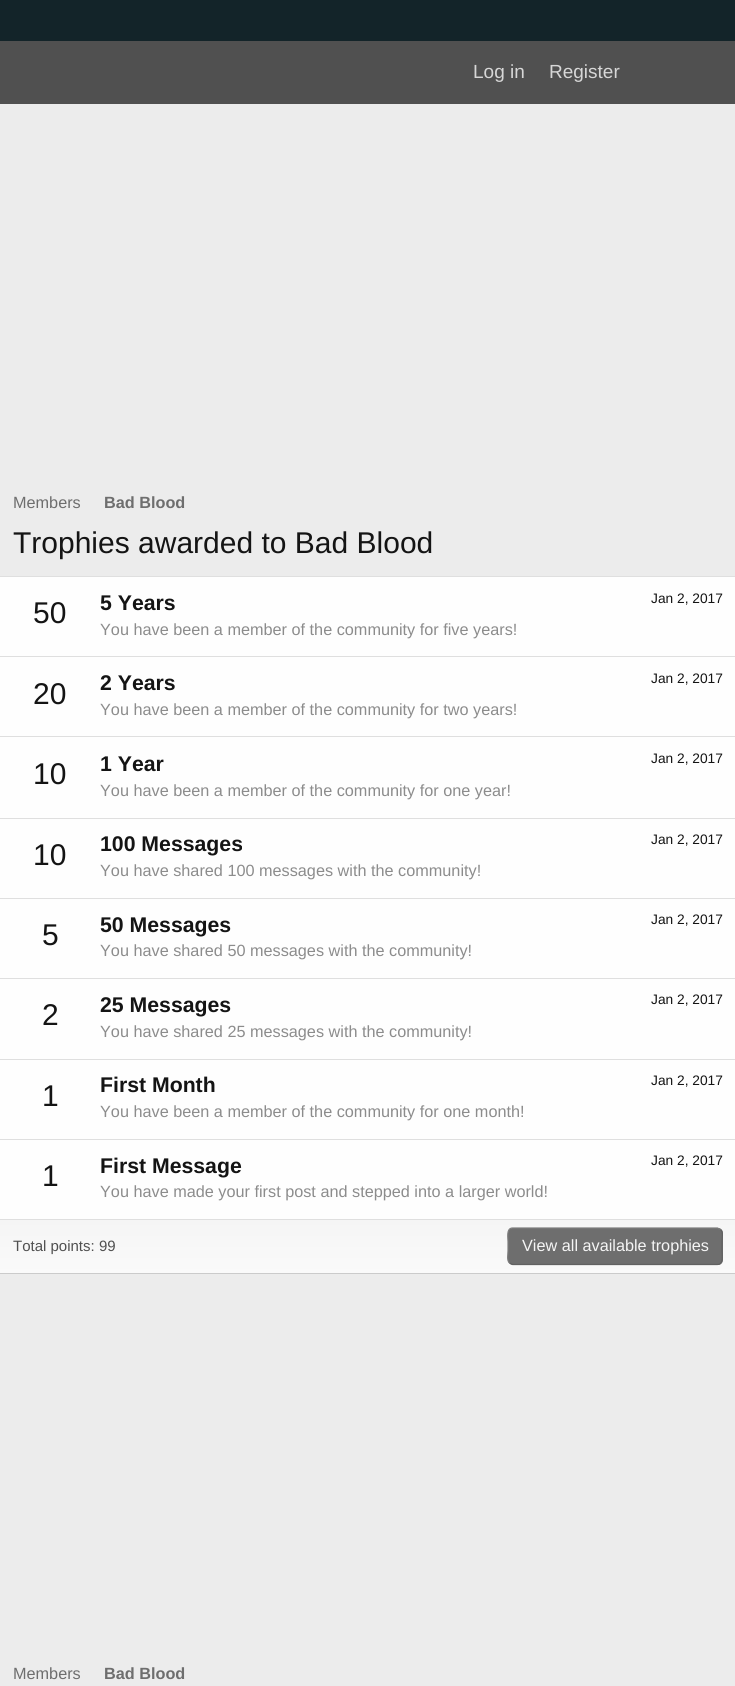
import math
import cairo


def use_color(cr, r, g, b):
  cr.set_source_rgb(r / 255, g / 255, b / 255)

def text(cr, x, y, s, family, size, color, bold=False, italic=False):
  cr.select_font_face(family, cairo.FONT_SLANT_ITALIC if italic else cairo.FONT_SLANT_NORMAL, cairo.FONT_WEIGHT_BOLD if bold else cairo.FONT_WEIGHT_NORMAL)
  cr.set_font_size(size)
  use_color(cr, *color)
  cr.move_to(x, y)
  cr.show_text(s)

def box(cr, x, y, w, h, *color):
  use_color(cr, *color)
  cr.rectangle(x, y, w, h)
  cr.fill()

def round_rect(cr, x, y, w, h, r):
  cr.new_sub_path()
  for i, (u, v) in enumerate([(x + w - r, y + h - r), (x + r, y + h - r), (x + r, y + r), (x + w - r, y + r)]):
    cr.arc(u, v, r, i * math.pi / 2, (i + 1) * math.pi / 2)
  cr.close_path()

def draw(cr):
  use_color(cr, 236, 236, 236)
  cr.paint()
  box(cr, 0, 0, 735, 41, 19, 36, 41)
  box(cr, 0, 41, 735, 63, 80, 80, 80)
  box(cr, 0, 577, 735, 642, 254, 254, 254)
  box(cr, 0, 576, 735, 1, 223, 223, 223)
  box(cr, 0, 1273, 735, 1, 203, 203, 203)
  box(cr, 0, 656, 735, 1, 223, 223, 223)
  box(cr, 0, 736, 735, 1, 223, 223, 223)
  box(cr, 0, 818, 735, 1, 223, 223, 223)
  box(cr, 0, 898, 735, 1, 223, 223, 223)
  box(cr, 0, 978, 735, 1, 223, 223, 223)
  box(cr, 0, 1059, 735, 1, 223, 223, 223)
  box(cr, 0, 1139, 735, 1, 223, 223, 223)
  gradient = cairo.LinearGradient(368, 1220, 368, 1273)
  gradient.add_color_stop_rgba(0, 0.961, 0.961, 0.961, 1)
  gradient.add_color_stop_rgba(1, 0.98, 0.98, 0.98, 1)
  cr.set_source(gradient)
  cr.rectangle(0, 1220, 735, 53)
  cr.fill()
  box(cr, 0, 1219, 735, 1, 223, 223, 223)
  use_color(cr, 110, 110, 110)
  round_rect(cr, 508, 1228, 215, 37, 5)
  cr.fill()
  cr.new_path()
  cr.move_to(720.5, 1229.5)
  cr.curve_to(723.5, 1232, 722, 1238.5, 722, 1241.5)
  cr.line_to(722, 1251)
  cr.curve_to(722, 1254, 724, 1264.5, 717.5, 1264.5)
  cr.line_to(512.5, 1264.5)
  cr.line_to(509.5, 1263)
  use_color(cr, 97, 97, 97)
  cr.set_line_width(1.2)
  cr.stroke()
  cr.new_path()
  cr.move_to(509.5, 1263)
  cr.curve_to(506.5, 1260.5, 508, 1254, 508, 1251)
  cr.line_to(508, 1241.5)
  cr.curve_to(508, 1238.5, 506, 1228, 512.5, 1228)
  cr.line_to(717.5, 1228)
  cr.line_to(720.5, 1229.5)
  use_color(cr, 123, 123, 123)
  cr.stroke()
  text(cr, 473, 78, "Log in", "Liberation Sans", 19, (215, 215, 215))
  text(cr, 549, 78, "Register", "Liberation Sans", 19, (215, 215, 215))
  text(cr, 13, 508, "Members", "Liberation Sans", 16.25, (110, 110, 110))
  text(cr, 104, 508, "Bad Blood", "Liberation Sans", 16.25, (110, 110, 110), bold=True)
  text(cr, 13, 553, "Trophies awarded to Bad Blood", "Liberation Sans", 30, (20, 20, 20))
  text(cr, 33, 623, "50", "Liberation Sans", 30, (20, 20, 20))
  text(cr, 100, 610, "5 Years", "Liberation Sans", 21.25, (20, 20, 20), bold=True)
  text(cr, 651, 603, "Jan 2, 2017", "Liberation Sans", 13.75, (20, 20, 20))
  text(cr, 100, 635, "You have been a member of the community for five years!", "Liberation Sans", 16.25, (140, 140, 140))
  text(cr, 33, 704, "20", "Liberation Sans", 30, (20, 20, 20))
  text(cr, 100, 690, "2 Years", "Liberation Sans", 21.25, (20, 20, 20), bold=True)
  text(cr, 651, 683, "Jan 2, 2017", "Liberation Sans", 13.75, (20, 20, 20))
  text(cr, 100, 715, "You have been a member of the community for two years!", "Liberation Sans", 16.25, (140, 140, 140))
  text(cr, 33, 784, "10", "Liberation Sans", 30, (20, 20, 20))
  text(cr, 100, 771, "1 Year", "Liberation Sans", 21.25, (20, 20, 20), bold=True)
  text(cr, 651, 763, "Jan 2, 2017", "Liberation Sans", 13.75, (20, 20, 20))
  text(cr, 100, 796, "You have been a member of the community for one year!", "Liberation Sans", 16.25, (140, 140, 140))
  text(cr, 33, 865, "10", "Liberation Sans", 30, (20, 20, 20))
  text(cr, 100, 851, "100 Messages", "Liberation Sans", 21.25, (20, 20, 20), bold=True)
  text(cr, 651, 844, "Jan 2, 2017", "Liberation Sans", 13.75, (20, 20, 20))
  text(cr, 100, 876, "You have shared 100 messages with the community!", "Liberation Sans", 16.25, (140, 140, 140))
  text(cr, 42, 945, "5", "Liberation Sans", 30, (20, 20, 20))
  text(cr, 100, 932, "50 Messages", "Liberation Sans", 21.25, (20, 20, 20), bold=True)
  text(cr, 651, 924, "Jan 2, 2017", "Liberation Sans", 13.75, (20, 20, 20))
  text(cr, 100, 956, "You have shared 50 messages with the community!", "Liberation Sans", 16.25, (140, 140, 140))
  text(cr, 42, 1025, "2", "Liberation Sans", 30, (20, 20, 20))
  text(cr, 100, 1012, "25 Messages", "Liberation Sans", 21.25, (20, 20, 20), bold=True)
  text(cr, 651, 1004, "Jan 2, 2017", "Liberation Sans", 13.75, (20, 20, 20))
  text(cr, 100, 1037, "You have shared 25 messages with the community!", "Liberation Sans", 16.25, (140, 140, 140))
  text(cr, 42, 1106, "1", "Liberation Sans", 30, (20, 20, 20))
  text(cr, 100, 1092, "First Month", "Liberation Sans", 21.25, (20, 20, 20), bold=True)
  text(cr, 651, 1085, "Jan 2, 2017", "Liberation Sans", 13.75, (20, 20, 20))
  text(cr, 100, 1117, "You have been a member of the community for one month!", "Liberation Sans", 16.25, (140, 140, 140))
  text(cr, 42, 1186, "1", "Liberation Sans", 30, (20, 20, 20))
  text(cr, 100, 1173, "First Message", "Liberation Sans", 21.25, (20, 20, 20), bold=True)
  text(cr, 651, 1165, "Jan 2, 2017", "Liberation Sans", 13.75, (20, 20, 20))
  text(cr, 100, 1197, "You have made your first post and stepped into a larger world!", "Liberation Sans", 16.25, (140, 140, 140))
  text(cr, 13, 1251, "Total points: 99", "Liberation Sans", 15, (80, 80, 80))
  text(cr, 522, 1251, "View all available trophies", "Liberation Sans", 16.25, (245, 245, 245))
  text(cr, 13, 1679, "Members", "Liberation Sans", 16.25, (110, 110, 110))
  text(cr, 104, 1679, "Bad Blood", "Liberation Sans", 16.25, (110, 110, 110), bold=True)


surface = cairo.ImageSurface(cairo.FORMAT_RGB24, 735, 1686)
cr = cairo.Context(surface)
options = cairo.FontOptions()
options.set_hint_metrics(cairo.HINT_METRICS_OFF)
options.set_hint_style(cairo.HINT_STYLE_NONE)
cr.set_font_options(options)
cr.set_miter_limit(4)
draw(cr)
surface.write_to_png("out.png")
